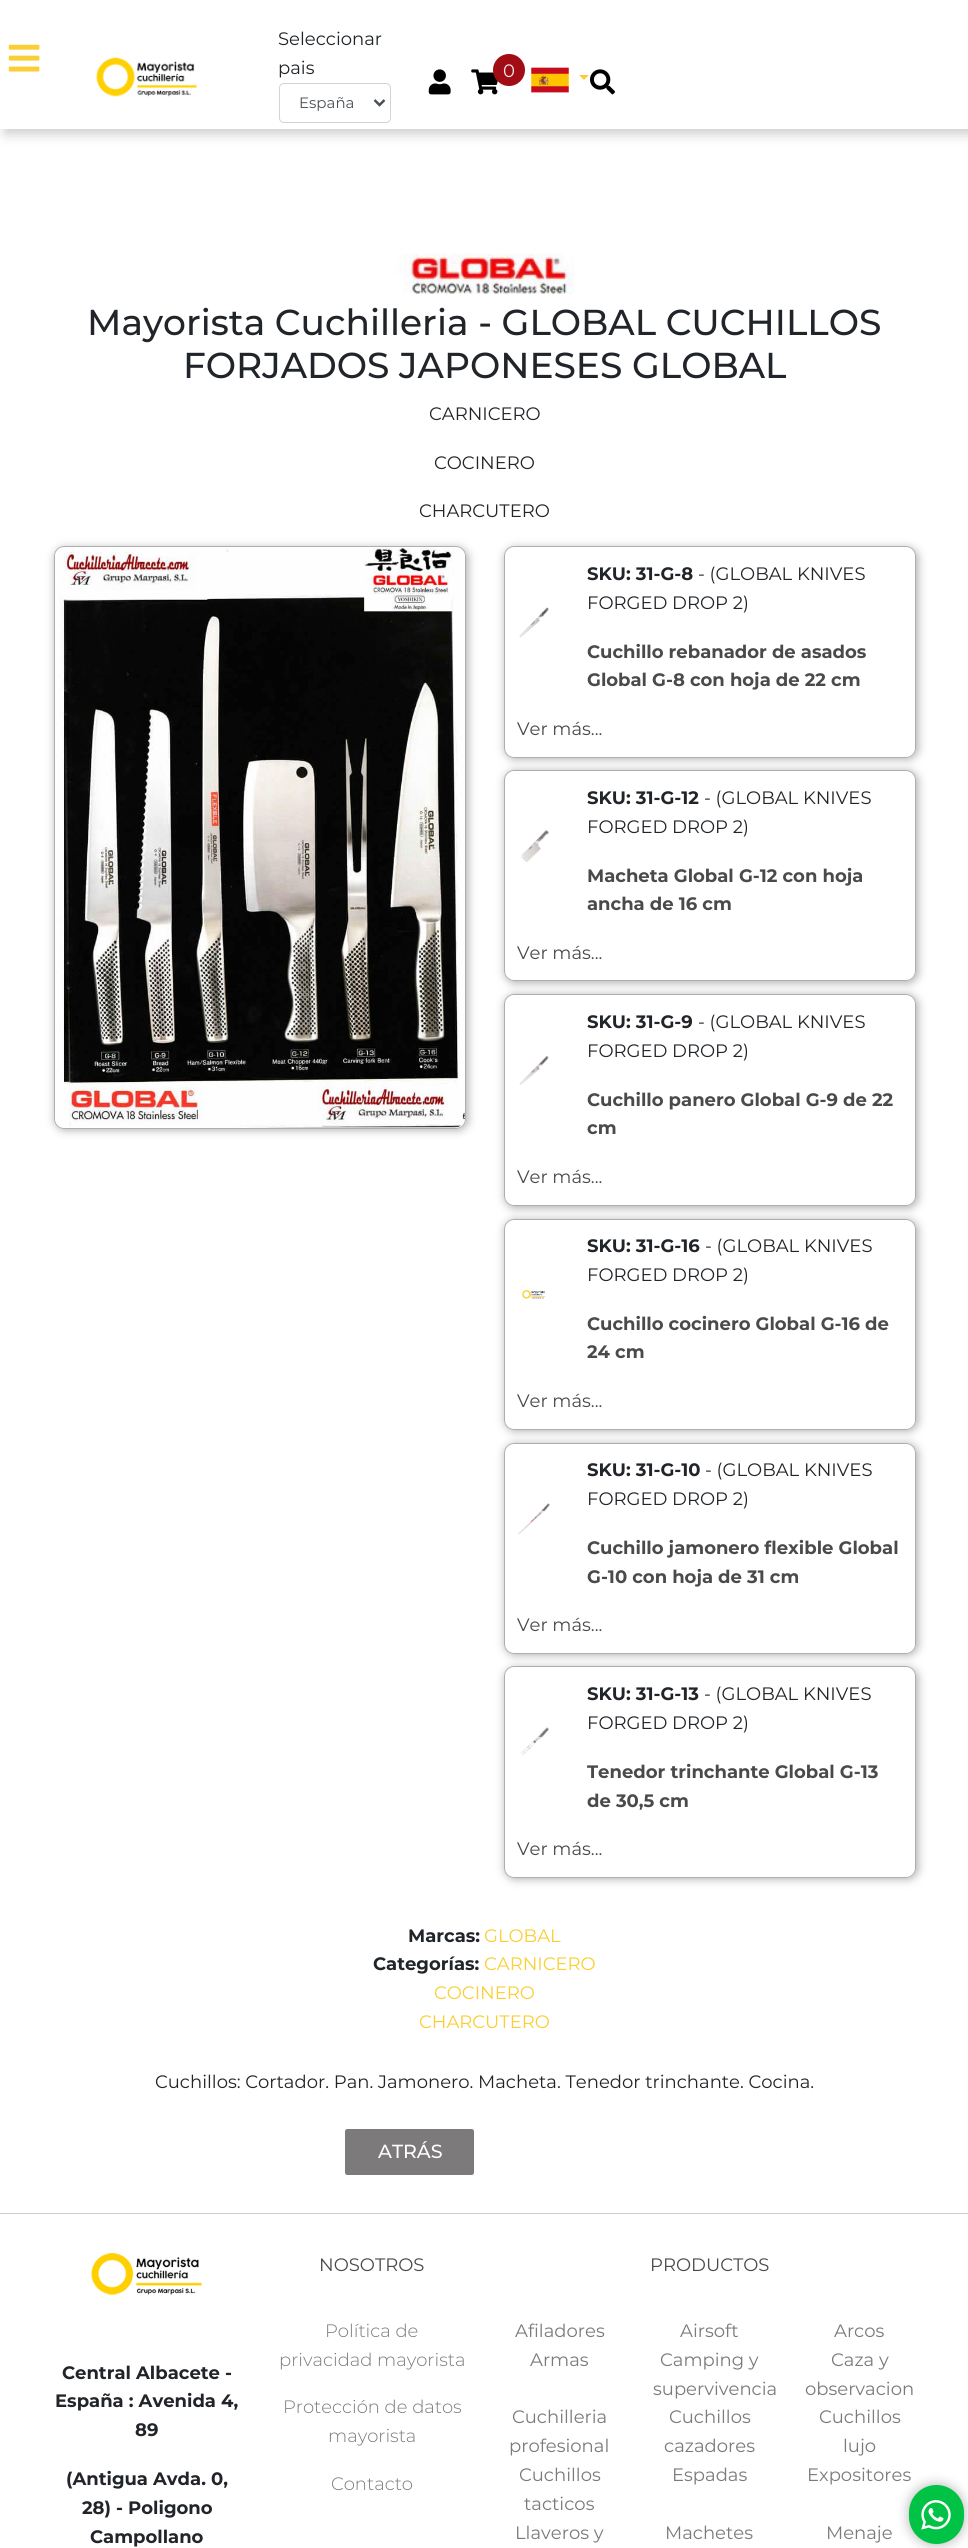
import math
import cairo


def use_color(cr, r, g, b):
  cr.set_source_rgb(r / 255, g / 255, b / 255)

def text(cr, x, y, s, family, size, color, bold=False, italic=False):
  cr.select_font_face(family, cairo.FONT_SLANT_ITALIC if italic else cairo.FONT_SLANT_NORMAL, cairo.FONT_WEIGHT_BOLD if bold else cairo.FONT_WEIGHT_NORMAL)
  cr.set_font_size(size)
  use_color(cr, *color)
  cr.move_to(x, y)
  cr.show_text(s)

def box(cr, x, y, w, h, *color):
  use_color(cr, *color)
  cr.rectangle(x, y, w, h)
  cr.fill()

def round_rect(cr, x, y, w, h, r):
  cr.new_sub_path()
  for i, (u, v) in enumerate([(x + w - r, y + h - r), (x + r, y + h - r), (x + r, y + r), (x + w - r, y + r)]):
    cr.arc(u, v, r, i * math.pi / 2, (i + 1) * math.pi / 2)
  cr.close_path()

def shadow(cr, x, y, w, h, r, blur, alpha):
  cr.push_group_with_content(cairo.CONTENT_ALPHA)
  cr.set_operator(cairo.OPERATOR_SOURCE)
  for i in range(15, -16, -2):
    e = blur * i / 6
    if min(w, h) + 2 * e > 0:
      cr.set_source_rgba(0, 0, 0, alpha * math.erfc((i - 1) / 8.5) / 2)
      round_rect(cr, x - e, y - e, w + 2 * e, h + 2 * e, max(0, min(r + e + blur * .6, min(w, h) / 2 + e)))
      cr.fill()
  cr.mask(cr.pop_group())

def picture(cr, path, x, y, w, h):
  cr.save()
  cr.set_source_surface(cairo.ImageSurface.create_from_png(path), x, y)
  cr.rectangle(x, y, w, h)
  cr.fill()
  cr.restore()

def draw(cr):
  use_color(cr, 255, 255, 255)
  cr.paint()
  use_color(cr, 0, 0, 0)
  shadow(cr, 5, 5, 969, 129, 0, 6, 0.2)
  box(cr, 0, 0, 968, 129, 255, 255, 255)
  picture(cr, "img_01.png", 8, 44, 32, 28)
  picture(cr, "img_02.png", 96, 57, 101, 40)
  round_rect(cr, 279.5, 83.5, 111, 39, 4.5)
  use_color(cr, 206, 212, 218)
  cr.set_line_width(1)
  cr.stroke()
  cr.new_path()
  cr.move_to(374.5, 100)
  cr.line_to(379.5, 105)
  cr.line_to(384.5, 100)
  use_color(cr, 73, 80, 87)
  cr.set_line_width(2.5)
  cr.stroke()
  picture(cr, "img_03.png", 428, 69, 23, 26)
  picture(cr, "img_04.png", 471, 69, 27, 26)
  use_color(cr, 162, 13, 21)
  cr.arc(509, 70, 16, 0, 2 * math.pi)
  cr.fill()
  picture(cr, "img_05.png", 531, 67, 38, 26)
  use_color(cr, 250, 206, 52)
  cr.new_path()
  cr.move_to(579, 75)
  cr.line_to(589, 75)
  cr.line_to(584, 80)
  cr.close_path()
  cr.fill()
  picture(cr, "img_06.png", 590, 69, 25, 26)
  picture(cr, "img_07.png", 396, 253, 178, 41)
  cr.save()
  cr.set_fill_rule(cairo.FILL_RULE_EVEN_ODD)
  cr.new_path()
  cr.move_to(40, 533)
  cr.line_to(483, 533)
  cr.line_to(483, 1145)
  cr.line_to(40, 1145)
  cr.close_path()
  cr.move_to(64, 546)
  cr.line_to(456, 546)
  cr.curve_to(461.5, 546, 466, 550.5, 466, 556)
  cr.line_to(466, 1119)
  cr.curve_to(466, 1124.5, 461.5, 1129, 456, 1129)
  cr.line_to(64, 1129)
  cr.curve_to(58.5, 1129, 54, 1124.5, 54, 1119)
  cr.line_to(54, 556)
  cr.curve_to(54, 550.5, 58.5, 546, 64, 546)
  cr.close_path()
  cr.clip()
  use_color(cr, 174, 174, 174)
  shadow(cr, 55, 548, 413, 582, 10, 4.5, 1)
  cr.restore()
  round_rect(cr, 54.5, 546.5, 411, 582, 9.5)
  use_color(cr, 174, 174, 174)
  cr.set_line_width(1)
  cr.stroke()
  picture(cr, "img_08.png", 55, 547, 410, 581)
  cr.save()
  cr.set_fill_rule(cairo.FILL_RULE_EVEN_ODD)
  cr.new_path()
  cr.move_to(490, 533)
  cr.line_to(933, 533)
  cr.line_to(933, 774)
  cr.line_to(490, 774)
  cr.close_path()
  cr.move_to(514, 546)
  cr.line_to(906, 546)
  cr.curve_to(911.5, 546, 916, 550.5, 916, 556)
  cr.line_to(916, 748)
  cr.curve_to(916, 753.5, 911.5, 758, 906, 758)
  cr.line_to(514, 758)
  cr.curve_to(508.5, 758, 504, 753.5, 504, 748)
  cr.line_to(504, 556)
  cr.curve_to(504, 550.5, 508.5, 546, 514, 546)
  cr.close_path()
  cr.clip()
  use_color(cr, 174, 174, 174)
  shadow(cr, 505, 548, 413, 211, 10, 4.5, 1)
  cr.restore()
  round_rect(cr, 504.5, 546.5, 411, 211, 9.5)
  cr.stroke()
  picture(cr, "img_09.png", 519, 607, 30, 31)
  cr.save()
  cr.set_fill_rule(cairo.FILL_RULE_EVEN_ODD)
  cr.new_path()
  cr.move_to(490, 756)
  cr.line_to(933, 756)
  cr.line_to(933, 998)
  cr.line_to(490, 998)
  cr.close_path()
  cr.move_to(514, 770)
  cr.line_to(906, 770)
  cr.curve_to(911.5, 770, 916, 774.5, 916, 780)
  cr.line_to(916, 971)
  cr.curve_to(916, 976.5, 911.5, 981, 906, 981)
  cr.line_to(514, 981)
  cr.curve_to(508.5, 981, 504, 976.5, 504, 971)
  cr.line_to(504, 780)
  cr.curve_to(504, 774.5, 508.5, 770, 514, 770)
  cr.close_path()
  cr.clip()
  use_color(cr, 174, 174, 174)
  shadow(cr, 505, 771, 413, 212, 10, 4.5, 1)
  cr.restore()
  round_rect(cr, 504.5, 770.5, 411, 210, 9.5)
  cr.stroke()
  picture(cr, "img_10.png", 521, 829, 29, 34)
  cr.save()
  cr.set_fill_rule(cairo.FILL_RULE_EVEN_ODD)
  cr.new_path()
  cr.move_to(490, 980)
  cr.line_to(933, 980)
  cr.line_to(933, 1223)
  cr.line_to(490, 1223)
  cr.close_path()
  cr.move_to(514, 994)
  cr.line_to(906, 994)
  cr.curve_to(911.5, 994, 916, 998.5, 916, 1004)
  cr.line_to(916, 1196)
  cr.curve_to(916, 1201.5, 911.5, 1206, 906, 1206)
  cr.line_to(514, 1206)
  cr.curve_to(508.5, 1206, 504, 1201.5, 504, 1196)
  cr.line_to(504, 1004)
  cr.curve_to(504, 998.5, 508.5, 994, 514, 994)
  cr.close_path()
  cr.clip()
  use_color(cr, 174, 174, 174)
  shadow(cr, 505, 995, 413, 213, 10, 4.5, 1)
  cr.restore()
  round_rect(cr, 504.5, 994.5, 411, 211, 9.5)
  cr.stroke()
  picture(cr, "img_11.png", 519, 1056, 30, 29)
  cr.save()
  cr.set_fill_rule(cairo.FILL_RULE_EVEN_ODD)
  cr.new_path()
  cr.move_to(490, 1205)
  cr.line_to(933, 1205)
  cr.line_to(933, 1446)
  cr.line_to(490, 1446)
  cr.close_path()
  cr.move_to(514, 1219)
  cr.line_to(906, 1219)
  cr.curve_to(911.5, 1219, 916, 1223.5, 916, 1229)
  cr.line_to(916, 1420)
  cr.curve_to(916, 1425.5, 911.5, 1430, 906, 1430)
  cr.line_to(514, 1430)
  cr.curve_to(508.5, 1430, 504, 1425.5, 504, 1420)
  cr.line_to(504, 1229)
  cr.curve_to(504, 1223.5, 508.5, 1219, 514, 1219)
  cr.close_path()
  cr.clip()
  use_color(cr, 174, 174, 174)
  shadow(cr, 505, 1220, 413, 211, 10, 4.5, 1)
  cr.restore()
  round_rect(cr, 504.5, 1219.5, 411, 210, 9.5)
  cr.stroke()
  picture(cr, "img_12.png", 522, 1290, 24, 9)
  cr.save()
  cr.set_fill_rule(cairo.FILL_RULE_EVEN_ODD)
  cr.new_path()
  cr.move_to(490, 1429)
  cr.line_to(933, 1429)
  cr.line_to(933, 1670)
  cr.line_to(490, 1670)
  cr.close_path()
  cr.move_to(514, 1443)
  cr.line_to(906, 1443)
  cr.curve_to(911.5, 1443, 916, 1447.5, 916, 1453)
  cr.line_to(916, 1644)
  cr.curve_to(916, 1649.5, 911.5, 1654, 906, 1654)
  cr.line_to(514, 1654)
  cr.curve_to(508.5, 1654, 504, 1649.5, 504, 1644)
  cr.line_to(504, 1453)
  cr.curve_to(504, 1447.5, 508.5, 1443, 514, 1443)
  cr.close_path()
  cr.clip()
  use_color(cr, 174, 174, 174)
  shadow(cr, 505, 1444, 413, 211, 10, 4.5, 1)
  cr.restore()
  round_rect(cr, 504.5, 1443.5, 411, 210, 9.5)
  cr.stroke()
  picture(cr, "img_13.png", 518, 1503, 32, 32)
  cr.save()
  cr.set_fill_rule(cairo.FILL_RULE_EVEN_ODD)
  cr.new_path()
  cr.move_to(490, 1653)
  cr.line_to(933, 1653)
  cr.line_to(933, 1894)
  cr.line_to(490, 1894)
  cr.close_path()
  cr.move_to(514, 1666)
  cr.line_to(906, 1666)
  cr.curve_to(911.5, 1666, 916, 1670.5, 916, 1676)
  cr.line_to(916, 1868)
  cr.curve_to(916, 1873.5, 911.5, 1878, 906, 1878)
  cr.line_to(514, 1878)
  cr.curve_to(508.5, 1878, 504, 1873.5, 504, 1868)
  cr.line_to(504, 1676)
  cr.curve_to(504, 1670.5, 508.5, 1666, 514, 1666)
  cr.close_path()
  cr.clip()
  use_color(cr, 174, 174, 174)
  shadow(cr, 505, 1668, 413, 211, 10, 4.5, 1)
  cr.restore()
  round_rect(cr, 504.5, 1666.5, 411, 211, 9.5)
  cr.stroke()
  picture(cr, "img_14.png", 520, 1727, 29, 29)
  use_color(cr, 124, 122, 122)
  round_rect(cr, 345.5, 2129.5, 128, 45, 2)
  cr.fill_preserve()
  cr.stroke()
  box(cr, 0, 2213, 968, 1, 204, 204, 204)
  picture(cr, "img_15.png", 91, 2253, 111, 42)
  use_color(cr, 0, 0, 0)
  shadow(cr, 909, 2485, 55, 59, 27.5, 6, 0.3)
  use_color(cr, 0, 194, 69)
  round_rect(cr, 909, 2485, 55, 59, 27.5)
  cr.fill()
  picture(cr, "img_16.png", 921, 2500, 30, 30)
  text(cr, 278, 45, "Seleccionar", "Montserrat", 18, (33, 37, 41))
  text(cr, 278, 74, "pais", "Montserrat", 18, (33, 37, 41))
  text(cr, 299, 108, "España", "Montserrat", 15, (73, 80, 87))
  text(cr, 503, 77, "0", "Montserrat", 18, (236, 236, 236))
  text(cr, 87, 335, "Mayorista Cuchilleria - GLOBAL CUCHILLOS", "Montserrat Medium", 36, (33, 37, 41))
  text(cr, 183, 378, "FORJADOS JAPONESES GLOBAL", "Montserrat Medium", 36, (33, 37, 41))
  text(cr, 429, 420, "CARNICERO", "Montserrat", 18, (33, 37, 41))
  text(cr, 434, 469, "COCINERO", "Montserrat", 18, (33, 37, 41))
  text(cr, 419, 517, "CHARCUTERO", "Montserrat", 18, (33, 37, 41))
  text(cr, 587, 580, "SKU: 31-G-8", "Montserrat", 18, (33, 37, 41), bold=True)
  text(cr, 698, 580, "- (GLOBAL KNIVES", "Montserrat", 18, (33, 37, 41))
  text(cr, 587, 609, "FORGED DROP 2)", "Montserrat", 18, (33, 37, 41))
  text(cr, 587, 658, "Cuchillo rebanador de asados", "Montserrat", 18, (74, 74, 74), bold=True)
  text(cr, 587, 686, "Global G-8 con hoja de 22 cm", "Montserrat", 18, (74, 74, 74), bold=True)
  text(cr, 517, 735, "Ver más...", "Montserrat", 18, (74, 74, 74))
  text(cr, 587, 804, "SKU: 31-G-12", "Montserrat", 18, (33, 37, 41), bold=True)
  text(cr, 704, 804, "- (GLOBAL KNIVES", "Montserrat", 18, (33, 37, 41))
  text(cr, 587, 833, "FORGED DROP 2)", "Montserrat", 18, (33, 37, 41))
  text(cr, 587, 882, "Macheta Global G-12 con hoja", "Montserrat", 18, (74, 74, 74), bold=True)
  text(cr, 587, 910, "ancha de 16 cm", "Montserrat", 18, (74, 74, 74), bold=True)
  text(cr, 517, 959, "Ver más...", "Montserrat", 18, (74, 74, 74))
  text(cr, 587, 1028, "SKU: 31-G-9", "Montserrat", 18, (33, 37, 41), bold=True)
  text(cr, 698, 1028, "- (GLOBAL KNIVES", "Montserrat", 18, (33, 37, 41))
  text(cr, 587, 1057, "FORGED DROP 2)", "Montserrat", 18, (33, 37, 41))
  text(cr, 587, 1106, "Cuchillo panero Global G-9 de 22", "Montserrat", 18, (74, 74, 74), bold=True)
  text(cr, 587, 1134, "cm", "Montserrat", 18, (74, 74, 74), bold=True)
  text(cr, 517, 1183, "Ver más...", "Montserrat", 18, (74, 74, 74))
  text(cr, 587, 1252, "SKU: 31-G-16", "Montserrat", 18, (33, 37, 41), bold=True)
  text(cr, 705, 1252, "- (GLOBAL KNIVES", "Montserrat", 18, (33, 37, 41))
  text(cr, 587, 1281, "FORGED DROP 2)", "Montserrat", 18, (33, 37, 41))
  text(cr, 587, 1330, "Cuchillo cocinero Global G-16 de", "Montserrat", 18, (74, 74, 74), bold=True)
  text(cr, 587, 1358, "24 cm", "Montserrat", 18, (74, 74, 74), bold=True)
  text(cr, 517, 1407, "Ver más...", "Montserrat", 18, (74, 74, 74))
  text(cr, 587, 1476, "SKU: 31-G-10", "Montserrat", 18, (33, 37, 41), bold=True)
  text(cr, 705, 1476, "- (GLOBAL KNIVES", "Montserrat", 18, (33, 37, 41))
  text(cr, 587, 1505, "FORGED DROP 2)", "Montserrat", 18, (33, 37, 41))
  text(cr, 587, 1554, "Cuchillo jamonero flexible Global", "Montserrat", 18, (74, 74, 74), bold=True)
  text(cr, 587, 1583, "G-10 con hoja de 31 cm", "Montserrat", 18, (74, 74, 74), bold=True)
  text(cr, 517, 1631, "Ver más...", "Montserrat", 18, (74, 74, 74))
  text(cr, 587, 1700, "SKU: 31-G-13", "Montserrat", 18, (33, 37, 41), bold=True)
  text(cr, 704, 1700, "- (GLOBAL KNIVES", "Montserrat", 18, (33, 37, 41))
  text(cr, 587, 1729, "FORGED DROP 2)", "Montserrat", 18, (33, 37, 41))
  text(cr, 587, 1778, "Tenedor trinchante Global G-13", "Montserrat", 18, (74, 74, 74), bold=True)
  text(cr, 587, 1807, "de 30,5 cm", "Montserrat", 18, (74, 74, 74), bold=True)
  text(cr, 517, 1855, "Ver más...", "Montserrat", 18, (74, 74, 74))
  text(cr, 408, 1942, "Marcas:", "Montserrat", 18, (33, 37, 41), bold=True)
  text(cr, 484, 1942, "GLOBAL", "Montserrat", 18, (250, 206, 52))
  text(cr, 373, 1970, "Categorías:", "Montserrat", 18, (33, 37, 41), bold=True)
  text(cr, 484, 1970, "CARNICERO", "Montserrat", 18, (250, 206, 52))
  text(cr, 434, 1999, "COCINERO", "Montserrat", 18, (250, 206, 52))
  text(cr, 419, 2028, "CHARCUTERO", "Montserrat", 18, (250, 206, 52))
  text(cr, 155, 2088, "Cuchillos: Cortador. Pan. Jamonero. Macheta. Tenedor trinchante. Cocina.", "Montserrat", 18, (33, 37, 41))
  text(cr, 378, 2158, "ATRÁS", "Montserrat Medium", 19, (255, 255, 255))
  text(cr, 62, 2379, "Central Albacete -", "Montserrat", 18, (33, 37, 41), bold=True)
  text(cr, 55, 2407, "España : Avenida 4,", "Montserrat", 18, (33, 37, 41), bold=True)
  text(cr, 135, 2436, "89", "Montserrat", 18, (33, 37, 41), bold=True)
  text(cr, 66, 2485, "(Antigua Avda. 0,", "Montserrat", 18, (33, 37, 41), bold=True)
  text(cr, 82, 2514, "28) - Poligono", "Montserrat", 18, (33, 37, 41), bold=True)
  text(cr, 90, 2543, "Campollano", "Montserrat", 18, (33, 37, 41), bold=True)
  text(cr, 319, 2271, "NOSOTROS", "Montserrat", 18, (74, 74, 74))
  text(cr, 325, 2337, "Política de", "Montserrat Light", 18, (124, 122, 122))
  text(cr, 279, 2366, "privacidad mayorista", "Montserrat Light", 18, (124, 122, 122))
  text(cr, 283, 2413, "Protección de datos", "Montserrat Light", 18, (124, 122, 122))
  text(cr, 328, 2442, "mayorista", "Montserrat Light", 18, (124, 122, 122))
  text(cr, 331, 2490, "Contacto", "Montserrat Light", 18, (124, 122, 122))
  text(cr, 650, 2271, "PRODUCTOS", "Montserrat", 18, (74, 74, 74))
  text(cr, 515, 2337, "Afiladores", "Montserrat", 18, (124, 122, 122))
  text(cr, 680, 2337, "Airsoft", "Montserrat", 18, (124, 122, 122))
  text(cr, 834, 2337, "Arcos", "Montserrat", 18, (124, 122, 122))
  text(cr, 530, 2366, "Armas", "Montserrat", 18, (124, 122, 122))
  text(cr, 660, 2366, "Camping y", "Montserrat", 18, (124, 122, 122))
  text(cr, 653, 2395, "supervivencia", "Montserrat", 18, (124, 122, 122))
  text(cr, 831, 2366, "Caza y", "Montserrat", 18, (124, 122, 122))
  text(cr, 805, 2395, "observacion", "Montserrat", 18, (124, 122, 122))
  text(cr, 512, 2423, "Cuchilleria", "Montserrat", 18, (124, 122, 122))
  text(cr, 509, 2452, "profesional", "Montserrat", 18, (124, 122, 122))
  text(cr, 669, 2423, "Cuchillos", "Montserrat", 18, (124, 122, 122))
  text(cr, 664, 2452, "cazadores", "Montserrat", 18, (124, 122, 122))
  text(cr, 819, 2423, "Cuchillos", "Montserrat", 18, (124, 122, 122))
  text(cr, 843, 2452, "lujo", "Montserrat", 18, (124, 122, 122))
  text(cr, 519, 2481, "Cuchillos", "Montserrat", 18, (124, 122, 122))
  text(cr, 524, 2510, "tacticos", "Montserrat", 18, (124, 122, 122))
  text(cr, 672, 2481, "Espadas", "Montserrat", 18, (124, 122, 122))
  text(cr, 807, 2481, "Expositores", "Montserrat", 18, (124, 122, 122))
  text(cr, 515, 2539, "Llaveros y", "Montserrat", 18, (124, 122, 122))
  text(cr, 665, 2539, "Machetes", "Montserrat", 18, (124, 122, 122))
  text(cr, 826, 2539, "Menaje", "Montserrat", 18, (124, 122, 122))


surface = cairo.ImageSurface(cairo.FORMAT_RGB24, 968, 2548)
cr = cairo.Context(surface)
options = cairo.FontOptions()
options.set_hint_metrics(cairo.HINT_METRICS_OFF)
options.set_hint_style(cairo.HINT_STYLE_NONE)
cr.set_font_options(options)
cr.set_miter_limit(4)
draw(cr)
surface.write_to_png("out.png")
